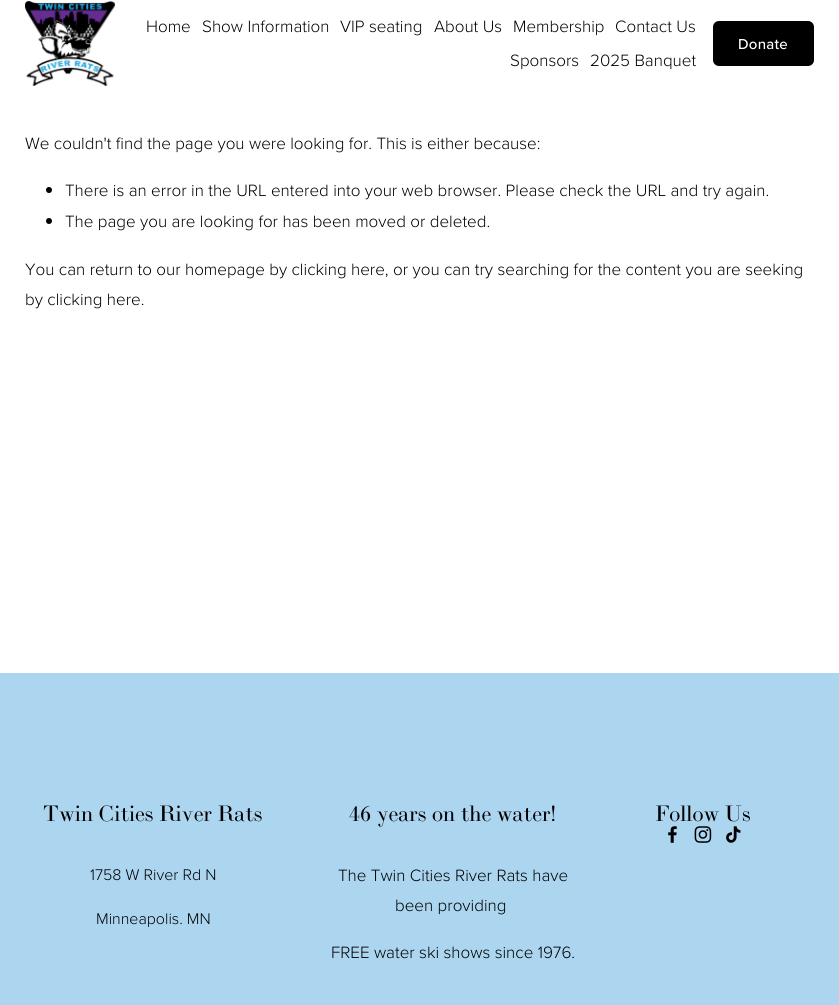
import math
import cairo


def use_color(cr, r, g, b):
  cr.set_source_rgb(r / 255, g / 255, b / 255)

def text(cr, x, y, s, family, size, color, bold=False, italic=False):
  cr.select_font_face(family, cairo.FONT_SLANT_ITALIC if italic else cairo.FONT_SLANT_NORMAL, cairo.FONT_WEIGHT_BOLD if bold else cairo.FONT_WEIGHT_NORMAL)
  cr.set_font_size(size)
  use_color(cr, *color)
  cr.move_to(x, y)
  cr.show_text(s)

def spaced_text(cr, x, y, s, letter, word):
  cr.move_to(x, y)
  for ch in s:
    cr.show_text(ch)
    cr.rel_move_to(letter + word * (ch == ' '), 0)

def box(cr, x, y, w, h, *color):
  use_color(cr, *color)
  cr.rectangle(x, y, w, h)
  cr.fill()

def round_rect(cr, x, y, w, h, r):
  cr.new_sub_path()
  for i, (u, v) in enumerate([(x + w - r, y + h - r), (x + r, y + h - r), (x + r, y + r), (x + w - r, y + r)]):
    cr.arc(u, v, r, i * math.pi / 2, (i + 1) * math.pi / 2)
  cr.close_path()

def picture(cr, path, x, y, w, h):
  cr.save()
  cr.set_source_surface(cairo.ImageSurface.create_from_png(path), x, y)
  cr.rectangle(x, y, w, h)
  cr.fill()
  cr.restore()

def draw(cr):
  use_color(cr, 255, 255, 255)
  cr.paint()
  picture(cr, "img_01.png", 25, 1, 90, 85)
  use_color(cr, 0, 0, 0)
  round_rect(cr, 713, 21, 101, 45, 6)
  cr.fill()
  cr.arc(49, 190, 3, 0, 2 * math.pi)
  cr.fill()
  cr.arc(49, 221, 3, 0, 2 * math.pi)
  cr.fill()
  box(cr, 0, 673, 839, 332, 172, 213, 240)
  picture(cr, "img_02.png", 668, 826, 9, 17)
  picture(cr, "img_03.png", 694, 826, 18, 17)
  picture(cr, "img_04.png", 726, 826, 15, 17)
  text(cr, 146, 32, "Home", "Proxima Nova Light", 17, (0, 0, 0))
  text(cr, 202, 32, "Show Information", "Proxima Nova Light", 17, (0, 0, 0))
  text(cr, 340, 32, "VIP seating", "Proxima Nova Light", 17, (0, 0, 0))
  text(cr, 434, 32, "About Us", "Proxima Nova Light", 17, (0, 0, 0))
  text(cr, 513, 32, "Membership", "Proxima Nova Light", 17, (0, 0, 0))
  text(cr, 615, 32, "Contact Us", "Proxima Nova Light", 17, (0, 0, 0))
  text(cr, 510, 66, "Sponsors", "Proxima Nova Light", 17, (0, 0, 0))
  text(cr, 590, 66, "2025 Banquet", "Proxima Nova Light", 17, (0, 0, 0))
  cr.select_font_face("Proxima Nova Medium")
  cr.set_font_size(15)
  use_color(cr, 255, 255, 255)
  spaced_text(cr, 738, 49, "Donate", 0.25, 0)
  text(cr, 25, 149, "We couldn't find the page you were looking for. This is either because:", "Proxima Nova Light", 17, (0, 0, 0))
  text(cr, 65, 196, "There is an error in the URL entered into your web browser. Please check the URL and try again.", "Proxima Nova Light", 17, (0, 0, 0))
  text(cr, 65, 227, "The page you are looking for has been moved or deleted.", "Proxima Nova Light", 17, (0, 0, 0))
  text(cr, 25, 275, "You can return to our homepage by clicking here, or you can try searching for the content you are seeking", "Proxima Nova Light", 17, (0, 0, 0))
  text(cr, 25, 305, "by clicking here.", "Proxima Nova Light", 17, (0, 0, 0))
  text(cr, 43, 821, "Twin Cities River Rats", "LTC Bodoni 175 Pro", 22, (0, 0, 0))
  text(cr, 90, 880, "1758 W River Rd N", "Proxima Nova Light", 16, (0, 0, 0))
  text(cr, 96, 924, "Minneapolis. MN", "Proxima Nova Light", 16, (0, 0, 0))
  text(cr, 349, 821, "46 years on the water!", "LTC Bodoni 175 Pro", 22, (0, 0, 0))
  text(cr, 338, 881, "The Twin Cities River Rats have", "Proxima Nova Light", 17, (0, 0, 0))
  text(cr, 395, 911, "been providing", "Proxima Nova Light", 17, (0, 0, 0))
  text(cr, 331, 958, "FREE water ski shows since 1976.", "Proxima Nova Light", 17, (0, 0, 0))
  text(cr, 655, 821, "Follow Us", "LTC Bodoni 175 Pro", 22, (0, 0, 0))


surface = cairo.ImageSurface(cairo.FORMAT_RGB24, 839, 1005)
cr = cairo.Context(surface)
options = cairo.FontOptions()
options.set_hint_metrics(cairo.HINT_METRICS_OFF)
options.set_hint_style(cairo.HINT_STYLE_NONE)
cr.set_font_options(options)
cr.set_miter_limit(4)
draw(cr)
surface.write_to_png("out.png")
